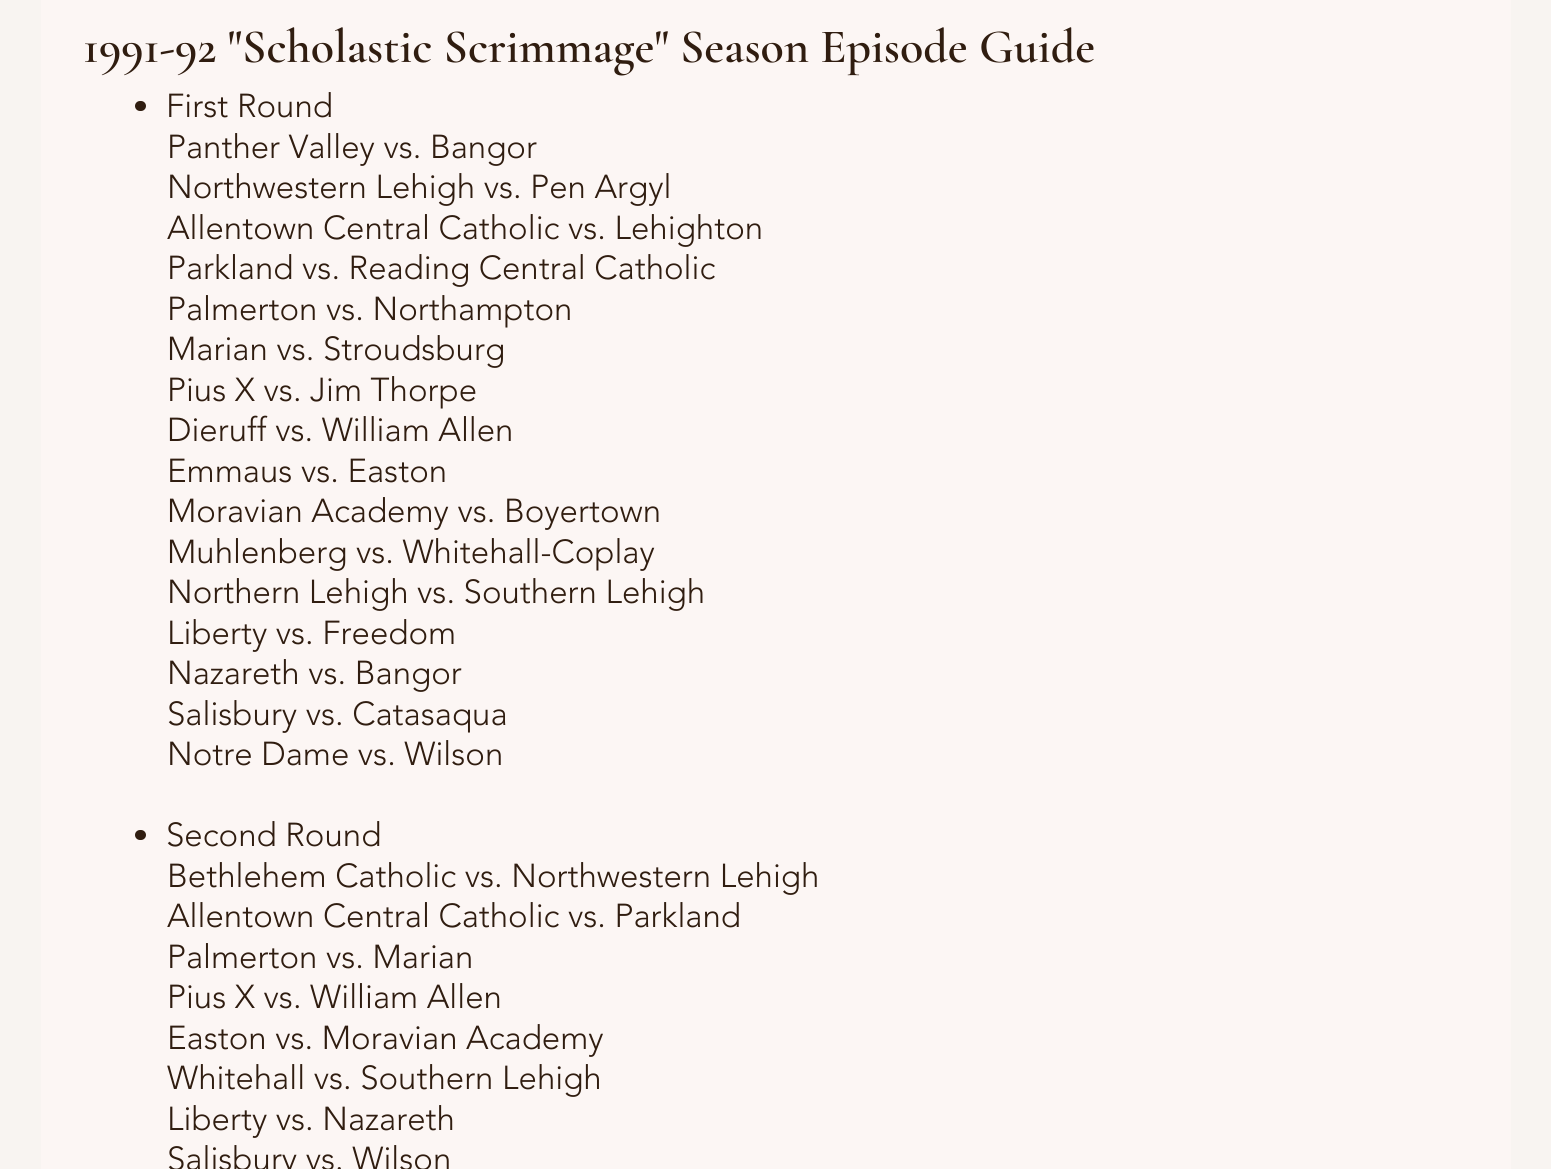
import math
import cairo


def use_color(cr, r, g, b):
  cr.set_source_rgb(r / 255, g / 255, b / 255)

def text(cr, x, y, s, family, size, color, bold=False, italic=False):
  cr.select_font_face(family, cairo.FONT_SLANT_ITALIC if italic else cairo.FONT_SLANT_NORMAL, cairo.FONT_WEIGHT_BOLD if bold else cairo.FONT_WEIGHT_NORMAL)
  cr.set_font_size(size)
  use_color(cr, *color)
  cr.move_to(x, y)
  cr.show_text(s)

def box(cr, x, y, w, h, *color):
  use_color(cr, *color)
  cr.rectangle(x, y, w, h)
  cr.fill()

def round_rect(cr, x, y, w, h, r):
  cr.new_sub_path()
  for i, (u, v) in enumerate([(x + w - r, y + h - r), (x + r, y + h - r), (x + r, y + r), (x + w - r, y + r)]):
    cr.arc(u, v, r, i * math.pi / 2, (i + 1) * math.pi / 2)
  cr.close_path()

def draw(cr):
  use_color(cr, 248, 244, 241)
  cr.paint()
  box(cr, 41, 0, 1470, 1169, 252, 246, 244)
  use_color(cr, 48, 29, 16)
  round_rect(cr, 135, 101, 11, 10, 5)
  cr.fill()
  round_rect(cr, 135, 830, 11, 10, 5)
  cr.fill()
  text(cr, 83, 62, "1991-92 \"Scholastic Scrimmage\" Season Episode Guide", "Cormorant Garamond SemiBold", 48, (48, 29, 16))
  text(cr, 166, 117, "First Round", "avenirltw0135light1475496 Light", 33, (48, 29, 16))
  text(cr, 167, 158, "Panther Valley vs. Bangor", "avenirltw0135light1475496 Light", 33, (48, 29, 16))
  text(cr, 167, 198, "Northwestern Lehigh vs. Pen Argyl", "avenirltw0135light1475496 Light", 33, (48, 29, 16))
  text(cr, 167, 239, "Allentown Central Catholic vs. Lehighton", "avenirltw0135light1475496 Light", 33, (48, 29, 16))
  text(cr, 167, 279, "Parkland vs. Reading Central Catholic", "avenirltw0135light1475496 Light", 33, (48, 29, 16))
  text(cr, 167, 320, "Palmerton vs. Northampton", "avenirltw0135light1475496 Light", 33, (48, 29, 16))
  text(cr, 167, 360, "Marian vs. Stroudsburg", "avenirltw0135light1475496 Light", 33, (48, 29, 16))
  text(cr, 167, 401, "Pius X vs. Jim Thorpe", "avenirltw0135light1475496 Light", 33, (48, 29, 16))
  text(cr, 167, 441, "Dieruff vs. William Allen", "avenirltw0135light1475496 Light", 33, (48, 29, 16))
  text(cr, 167, 482, "Emmaus vs. Easton", "avenirltw0135light1475496 Light", 33, (48, 29, 16))
  text(cr, 167, 522, "Moravian Academy vs. Boyertown", "avenirltw0135light1475496 Light", 33, (48, 29, 16))
  text(cr, 167, 563, "Muhlenberg vs. Whitehall-Coplay", "avenirltw0135light1475496 Light", 33, (48, 29, 16))
  text(cr, 167, 603, "Northern Lehigh vs. Southern Lehigh", "avenirltw0135light1475496 Light", 33, (48, 29, 16))
  text(cr, 167, 644, "Liberty vs. Freedom", "avenirltw0135light1475496 Light", 33, (48, 29, 16))
  text(cr, 167, 684, "Nazareth vs. Bangor", "avenirltw0135light1475496 Light", 33, (48, 29, 16))
  text(cr, 167, 725, "Salisbury vs. Catasaqua", "avenirltw0135light1475496 Light", 33, (48, 29, 16))
  text(cr, 167, 765, "Notre Dame vs. Wilson", "avenirltw0135light1475496 Light", 33, (48, 29, 16))
  text(cr, 166, 846, "Second Round", "avenirltw0135light1475496 Light", 33, (48, 29, 16))
  text(cr, 167, 887, "Bethlehem Catholic vs. Northwestern Lehigh", "avenirltw0135light1475496 Light", 33, (48, 29, 16))
  text(cr, 167, 927, "Allentown Central Catholic vs. Parkland", "avenirltw0135light1475496 Light", 33, (48, 29, 16))
  text(cr, 167, 968, "Palmerton vs. Marian", "avenirltw0135light1475496 Light", 33, (48, 29, 16))
  text(cr, 167, 1008, "Pius X vs. William Allen", "avenirltw0135light1475496 Light", 33, (48, 29, 16))
  text(cr, 167, 1049, "Easton vs. Moravian Academy", "avenirltw0135light1475496 Light", 33, (48, 29, 16))
  text(cr, 167, 1089, "Whitehall vs. Southern Lehigh", "avenirltw0135light1475496 Light", 33, (48, 29, 16))
  text(cr, 167, 1130, "Liberty vs. Nazareth", "avenirltw0135light1475496 Light", 33, (48, 29, 16))
  text(cr, 167, 1170, "Salisbury vs. Wilson", "avenirltw0135light1475496 Light", 33, (48, 29, 16))


surface = cairo.ImageSurface(cairo.FORMAT_RGB24, 1551, 1169)
cr = cairo.Context(surface)
options = cairo.FontOptions()
options.set_hint_metrics(cairo.HINT_METRICS_OFF)
options.set_hint_style(cairo.HINT_STYLE_NONE)
cr.set_font_options(options)
cr.set_miter_limit(4)
draw(cr)
surface.write_to_png("out.png")
